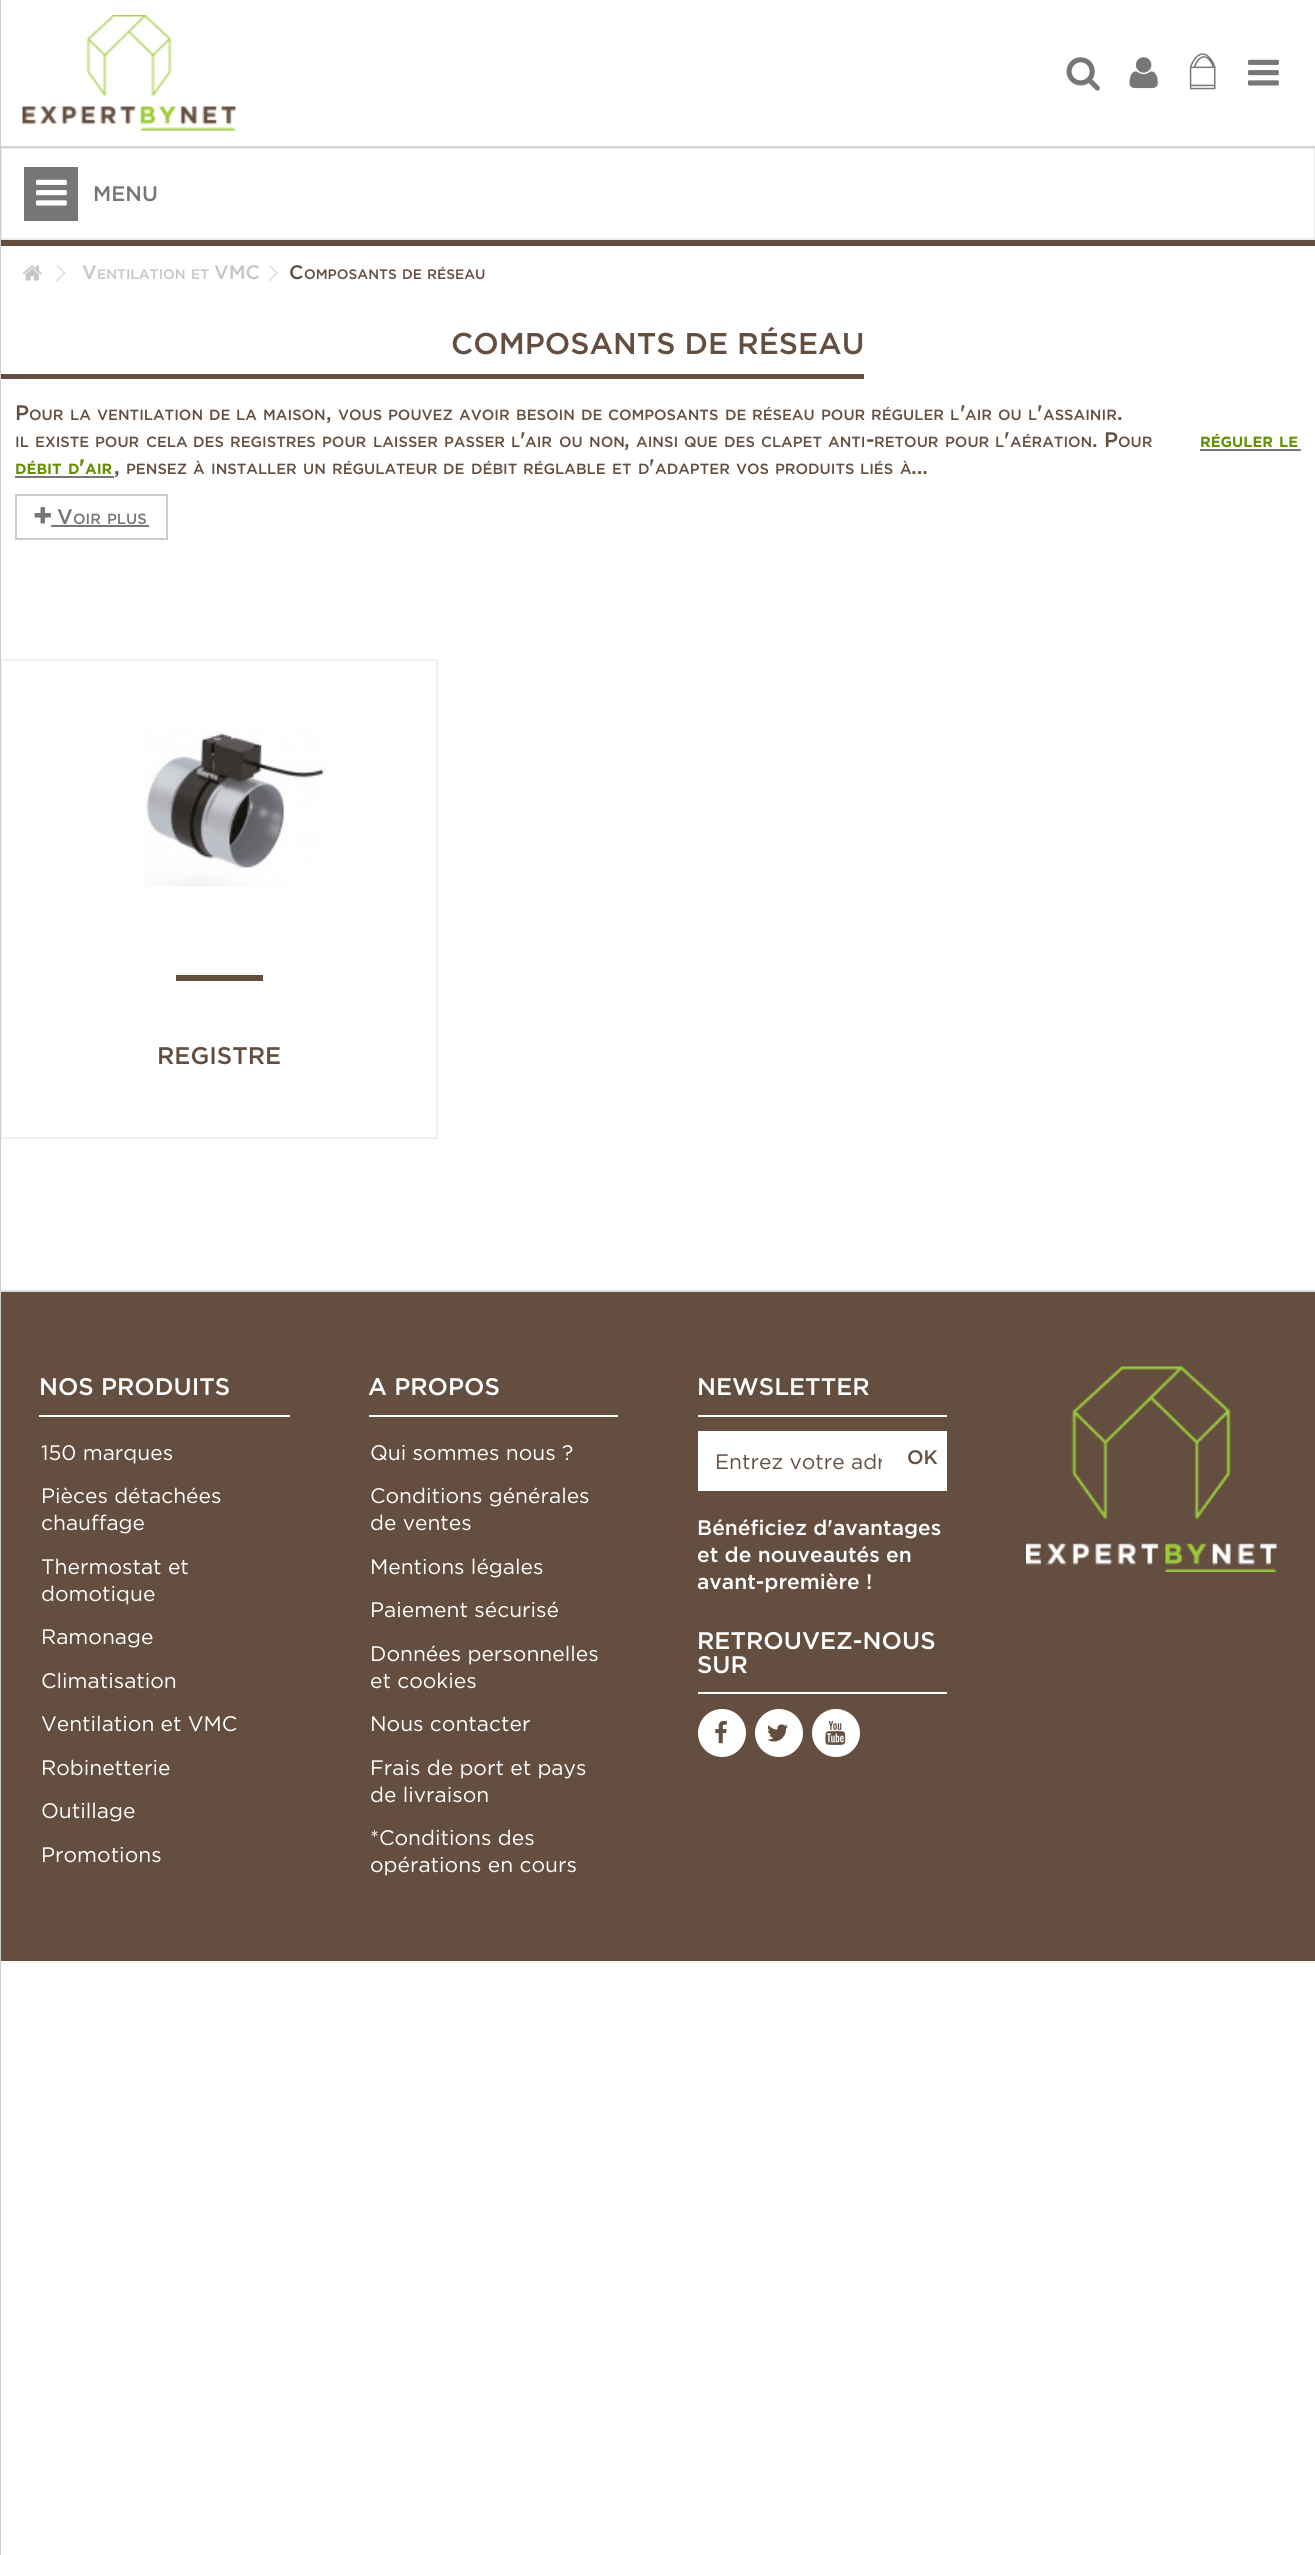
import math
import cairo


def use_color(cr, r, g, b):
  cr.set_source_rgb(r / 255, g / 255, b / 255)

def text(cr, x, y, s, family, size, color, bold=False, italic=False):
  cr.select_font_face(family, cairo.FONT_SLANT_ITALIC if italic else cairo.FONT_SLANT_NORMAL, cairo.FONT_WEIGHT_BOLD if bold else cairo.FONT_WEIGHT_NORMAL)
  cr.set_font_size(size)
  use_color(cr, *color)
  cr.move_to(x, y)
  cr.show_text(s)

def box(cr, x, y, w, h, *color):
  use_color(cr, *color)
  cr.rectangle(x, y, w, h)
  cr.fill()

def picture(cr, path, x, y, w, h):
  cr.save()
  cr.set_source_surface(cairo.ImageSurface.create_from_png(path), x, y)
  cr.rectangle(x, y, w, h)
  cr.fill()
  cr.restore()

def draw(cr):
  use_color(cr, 255, 255, 255)
  cr.paint()
  cr.rectangle(1, 148, 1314, 91)
  use_color(cr, 235, 235, 235)
  cr.stroke()
  box(cr, 0, 146, 1315, 2, 214, 212, 212)
  box(cr, 0, 240, 1315, 6, 100, 78, 64)
  box(cr, 0, 374, 864, 5, 100, 78, 64)
  cr.rectangle(1, 660, 436, 478)
  use_color(cr, 239, 239, 239)
  cr.stroke()
  box(cr, 0, 1290, 1315, 2, 221, 221, 221)
  box(cr, 0, 0, 1, 2555, 206, 206, 206)
  picture(cr, "img_01.png", 22, 15, 214, 116)
  picture(cr, "img_02.png", 1066, 57, 34, 34)
  picture(cr, "img_03.png", 1129, 57, 29, 32)
  picture(cr, "img_04.png", 1189, 53, 27, 37)
  picture(cr, "img_05.png", 1248, 59, 31, 27)
  box(cr, 24, 167, 54, 54, 119, 119, 119)
  picture(cr, "img_06.png", 36, 179, 31, 27)
  picture(cr, "img_07.png", 23, 265, 19, 16)
  use_color(cr, 221, 221, 221)
  cr.new_path()
  cr.move_to(57, 264.5)
  cr.line_to(65.5, 273)
  cr.line_to(64.5, 274)
  cr.line_to(56, 265.5)
  cr.close_path()
  cr.fill()
  cr.new_path()
  cr.move_to(64.5, 272)
  cr.line_to(65.5, 273)
  cr.line_to(57, 281.5)
  cr.line_to(56, 280.5)
  cr.close_path()
  cr.fill()
  cr.new_path()
  cr.move_to(269.5, 264.5)
  cr.line_to(278, 273)
  cr.line_to(277, 274)
  cr.line_to(268.5, 265.5)
  cr.close_path()
  cr.fill()
  cr.new_path()
  cr.move_to(277, 272)
  cr.line_to(278, 273)
  cr.line_to(269.5, 281.5)
  cr.line_to(268.5, 280.5)
  cr.close_path()
  cr.fill()
  box(cr, 1200, 449, 101, 2, 119, 119, 119)
  box(cr, 15, 476, 99, 2, 119, 119, 119)
  cr.rectangle(16, 495, 151, 44)
  use_color(cr, 204, 204, 204)
  cr.stroke()
  picture(cr, "img_08.png", 34, 507, 17, 17)
  box(cr, 51, 525, 98, 2, 119, 119, 119)
  picture(cr, "img_09.png", 144, 726, 181, 161)
  box(cr, 176, 975, 87, 6, 100, 78, 64)
  box(cr, 1, 1292, 1314, 669, 99, 78, 64)
  box(cr, 39, 1415, 251, 2, 255, 255, 255)
  box(cr, 369, 1415, 249, 2, 255, 255, 255)
  box(cr, 698, 1415, 249, 2, 255, 255, 255)
  box(cr, 698, 1431, 249, 60, 255, 255, 255)
  box(cr, 698, 1692, 249, 2, 255, 255, 255)
  cr.arc(722, 1733, 24, 0, 2 * math.pi)
  cr.fill()
  picture(cr, "img_10.png", 715, 1720, 12, 24)
  cr.arc(779, 1733, 24, 0, 2 * math.pi)
  cr.fill()
  picture(cr, "img_11.png", 767, 1724, 21, 18)
  cr.arc(836, 1733, 24, 0, 2 * math.pi)
  cr.fill()
  picture(cr, "img_12.png", 825, 1720, 21, 25)
  picture(cr, "img_13.png", 1026, 1366, 251, 206)
  text(cr, 93, 201, "MENU", "Gotham Medium", 21, (119, 119, 119))
  text(cr, 82, 279, "V", "Gotham Medium", 19.5, (198, 198, 200))
  text(cr, 97, 279, "ENTILATION", "Gotham Medium", 13.75, (198, 198, 200))
  text(cr, 191, 279, "ET", "Gotham Medium", 13.75, (198, 198, 200))
  text(cr, 214, 279, "VMC", "Gotham Medium", 19.5, (198, 198, 200))
  text(cr, 289, 279, "C", "Gotham Medium", 19.5, (100, 78, 64))
  text(cr, 304, 279, "OMPOSANTS", "Gotham Medium", 13.75, (100, 78, 64))
  text(cr, 402, 279, "DE", "Gotham Medium", 13.75, (100, 78, 64))
  text(cr, 427, 279, "RÉSEAU", "Gotham Medium", 13.75, (100, 78, 64))
  text(cr, 451, 354, "COMPOSANTS DE RÉSEAU", "Gotham Medium", 30, (100, 78, 64))
  text(cr, 15, 420, "P", "Gotham Medium", 21, (100, 78, 64))
  text(cr, 29, 420, "OUR", "Gotham Medium", 14.75, (100, 78, 64))
  text(cr, 70, 420, "LA", "Gotham Medium", 14.75, (100, 78, 64))
  text(cr, 97, 420, "VENTILATION", "Gotham Medium", 14.75, (100, 78, 64))
  text(cr, 209, 420, "DE", "Gotham Medium", 14.75, (100, 78, 64))
  text(cr, 236, 420, "LA", "Gotham Medium", 14.75, (100, 78, 64))
  text(cr, 263, 420, "MAISON", "Gotham Medium", 14.75, (100, 78, 64))
  text(cr, 326, 420, ",", "Gotham Medium", 21, (100, 78, 64))
  text(cr, 338, 420, "VOUS", "Gotham Medium", 14.75, (100, 78, 64))
  text(cr, 388, 420, "POUVEZ", "Gotham Medium", 14.75, (100, 78, 64))
  text(cr, 459, 420, "AVOIR", "Gotham Medium", 14.75, (100, 78, 64))
  text(cr, 516, 420, "BESOIN", "Gotham Medium", 14.75, (100, 78, 64))
  text(cr, 581, 420, "DE", "Gotham Medium", 14.75, (100, 78, 64))
  text(cr, 608, 420, "COMPOSANTS", "Gotham Medium", 14.75, (100, 78, 64))
  text(cr, 725, 420, "DE", "Gotham Medium", 14.75, (100, 78, 64))
  text(cr, 752, 420, "RÉSEAU", "Gotham Medium", 14.75, (100, 78, 64))
  text(cr, 821, 420, "POUR", "Gotham Medium", 14.75, (100, 78, 64))
  text(cr, 871, 420, "RÉGULER", "Gotham Medium", 14.75, (100, 78, 64))
  text(cr, 950, 420, "L", "Gotham Medium", 14.75, (100, 78, 64))
  text(cr, 960, 420, "'", "Gotham Medium", 21, (100, 78, 64))
  text(cr, 965, 420, "AIR", "Gotham Medium", 14.75, (100, 78, 64))
  text(cr, 998, 420, "OU", "Gotham Medium", 14.75, (100, 78, 64))
  text(cr, 1028, 420, "L", "Gotham Medium", 14.75, (100, 78, 64))
  text(cr, 1037, 420, "'", "Gotham Medium", 21, (100, 78, 64))
  text(cr, 1043, 420, "ASSAINIR", "Gotham Medium", 14.75, (100, 78, 64))
  text(cr, 1117, 420, ".", "Gotham Medium", 21, (100, 78, 64))
  text(cr, 15, 447, "IL", "Gotham Medium", 14.75, (100, 78, 64))
  text(cr, 35, 447, "EXISTE", "Gotham Medium", 14.75, (100, 78, 64))
  text(cr, 95, 447, "POUR", "Gotham Medium", 14.75, (100, 78, 64))
  text(cr, 146, 447, "CELA", "Gotham Medium", 14.75, (100, 78, 64))
  text(cr, 193, 447, "DES", "Gotham Medium", 14.75, (100, 78, 64))
  text(cr, 230, 447, "REGISTRES", "Gotham Medium", 14.75, (100, 78, 64))
  text(cr, 322, 447, "POUR", "Gotham Medium", 14.75, (100, 78, 64))
  text(cr, 373, 447, "LAISSER", "Gotham Medium", 14.75, (100, 78, 64))
  text(cr, 444, 447, "PASSER", "Gotham Medium", 14.75, (100, 78, 64))
  text(cr, 511, 447, "L", "Gotham Medium", 14.75, (100, 78, 64))
  text(cr, 520, 447, "'", "Gotham Medium", 21, (100, 78, 64))
  text(cr, 525, 447, "AIR", "Gotham Medium", 14.75, (100, 78, 64))
  text(cr, 559, 447, "OU", "Gotham Medium", 14.75, (100, 78, 64))
  text(cr, 589, 447, "NON", "Gotham Medium", 14.75, (100, 78, 64))
  text(cr, 636, 447, "AINSI", "Gotham Medium", 14.75, (100, 78, 64))
  text(cr, 684, 447, "QUE", "Gotham Medium", 14.75, (100, 78, 64))
  text(cr, 724, 447, "DES", "Gotham Medium", 14.75, (100, 78, 64))
  text(cr, 761, 447, "CLAPET", "Gotham Medium", 14.75, (100, 78, 64))
  text(cr, 828, 447, "ANTI", "Gotham Medium", 14.75, (100, 78, 64))
  text(cr, 866, 447, "-", "Gotham Medium", 21, (100, 78, 64))
  text(cr, 874, 447, "RETOUR", "Gotham Medium", 14.75, (100, 78, 64))
  text(cr, 945, 447, "POUR", "Gotham Medium", 14.75, (100, 78, 64))
  text(cr, 995, 447, "L", "Gotham Medium", 14.75, (100, 78, 64))
  text(cr, 1004, 447, "'", "Gotham Medium", 21, (100, 78, 64))
  text(cr, 1010, 447, "AÉRATION", "Gotham Medium", 14.75, (100, 78, 64))
  text(cr, 1092, 447, ". P", "Gotham Medium", 21, (100, 78, 64))
  text(cr, 1118, 447, "OUR", "Gotham Medium", 14.75, (100, 78, 64))
  text(cr, 1200, 447, "RÉGULER", "Gotham", 14.75, (99, 144, 0), bold=True)
  text(cr, 1279, 447, "LE", "Gotham", 14.75, (99, 144, 0), bold=True)
  text(cr, 624, 447, ",", "Gotham Medium", 21, (100, 78, 64))
  text(cr, 15, 474, "DÉBIT", "Gotham", 14.75, (99, 144, 0), bold=True)
  text(cr, 68, 474, "D", "Gotham", 14.75, (99, 144, 0), bold=True)
  text(cr, 79, 474, "'", "Gotham", 21, (99, 144, 0), bold=True)
  text(cr, 85, 474, "AIR", "Gotham", 14.75, (99, 144, 0), bold=True)
  text(cr, 114, 474, ",", "Gotham Medium", 21, (100, 78, 64))
  text(cr, 126, 474, "PENSEZ", "Gotham Medium", 14.75, (100, 78, 64))
  text(cr, 193, 474, "À", "Gotham Medium", 14.75, (100, 78, 64))
  text(cr, 211, 474, "INSTALLER", "Gotham Medium", 14.75, (100, 78, 64))
  text(cr, 303, 474, "UN", "Gotham Medium", 14.75, (100, 78, 64))
  text(cr, 332, 474, "RÉGULATEUR", "Gotham Medium", 14.75, (100, 78, 64))
  text(cr, 443, 474, "DE", "Gotham Medium", 14.75, (100, 78, 64))
  text(cr, 471, 474, "DÉBIT", "Gotham Medium", 14.75, (100, 78, 64))
  text(cr, 523, 474, "RÉGLABLE", "Gotham Medium", 14.75, (100, 78, 64))
  text(cr, 612, 474, "ET", "Gotham Medium", 14.75, (100, 78, 64))
  text(cr, 638, 474, "D", "Gotham Medium", 14.75, (100, 78, 64))
  text(cr, 649, 474, "'", "Gotham Medium", 21, (100, 78, 64))
  text(cr, 655, 474, "ADAPTER", "Gotham Medium", 14.75, (100, 78, 64))
  text(cr, 736, 474, "VOS", "Gotham Medium", 14.75, (100, 78, 64))
  text(cr, 775, 474, "PRODUITS", "Gotham Medium", 14.75, (100, 78, 64))
  text(cr, 860, 474, "LIÉS", "Gotham Medium", 14.75, (100, 78, 64))
  text(cr, 900, 474, "À", "Gotham Medium", 14.75, (100, 78, 64))
  text(cr, 911, 474, "...", "Gotham Medium", 21, (100, 78, 64))
  text(cr, 57, 524, "V", "Gotham Medium", 21, (119, 119, 119))
  text(cr, 73, 524, "OIR", "Gotham Medium", 14.75, (119, 119, 119))
  text(cr, 107, 524, "PLUS", "Gotham Medium", 14.75, (119, 119, 119))
  text(cr, 157, 1064, "REGISTRE", "Gotham Medium", 24, (100, 78, 64))
  text(cr, 39, 1395, "NOS PRODUITS", "Gotham Medium", 24, (255, 255, 255))
  text(cr, 41, 1460, "150 marques", "Gotham", 21, (255, 255, 255))
  text(cr, 41, 1503, "Pièces détachées", "Gotham", 21, (255, 255, 255))
  text(cr, 41, 1530, "chauffage", "Gotham", 21, (255, 255, 255))
  text(cr, 41, 1574, "Thermostat et", "Gotham", 21, (255, 255, 255))
  text(cr, 41, 1601, "domotique", "Gotham", 21, (255, 255, 255))
  text(cr, 41, 1644, "Ramonage", "Gotham", 21, (255, 255, 255))
  text(cr, 41, 1688, "Climatisation", "Gotham", 21, (255, 255, 255))
  text(cr, 41, 1731, "Ventilation et VMC", "Gotham", 21, (255, 255, 255))
  text(cr, 41, 1775, "Robinetterie", "Gotham", 21, (255, 255, 255))
  text(cr, 41, 1818, "Outillage", "Gotham", 21, (255, 255, 255))
  text(cr, 41, 1862, "Promotions", "Gotham", 21, (255, 255, 255))
  text(cr, 368, 1395, "A PROPOS", "Gotham Medium", 24, (255, 255, 255))
  text(cr, 370, 1460, "Qui sommes nous ?", "Gotham", 21, (255, 255, 255))
  text(cr, 370, 1503, "Conditions générales", "Gotham", 21, (255, 255, 255))
  text(cr, 370, 1530, "de ventes", "Gotham", 21, (255, 255, 255))
  text(cr, 370, 1574, "Mentions légales", "Gotham", 21, (255, 255, 255))
  text(cr, 370, 1617, "Paiement sécurisé", "Gotham", 21, (255, 255, 255))
  text(cr, 370, 1661, "Données personnelles", "Gotham", 21, (255, 255, 255))
  text(cr, 370, 1688, "et cookies", "Gotham", 21, (255, 255, 255))
  text(cr, 370, 1731, "Nous contacter", "Gotham", 21, (255, 255, 255))
  text(cr, 370, 1775, "Frais de port et pays", "Gotham", 21, (255, 255, 255))
  text(cr, 370, 1802, "de livraison", "Gotham", 21, (255, 255, 255))
  text(cr, 370, 1845, "*Conditions des", "Gotham", 21, (255, 255, 255))
  text(cr, 370, 1872, "opérations en cours", "Gotham", 21, (255, 255, 255))
  text(cr, 697, 1395, "NEWSLETTER", "Gotham Medium", 24, (255, 255, 255))
  cr.save()
  cr.rectangle(716, 1449, 166, 24)
  cr.clip()
  text(cr, 715, 1469, "Entrez votre adr", "Gotham", 21, (100, 78, 64))
  cr.restore()
  text(cr, 907, 1464, "OK", "Gotham Medium", 19.5, (100, 78, 64))
  text(cr, 697, 1535, "Bénéficiez d'avantages", "Gotham Medium", 21, (255, 255, 255))
  text(cr, 697, 1562, "et de nouveautés en", "Gotham Medium", 21, (255, 255, 255))
  text(cr, 697, 1589, "avant-première !", "Gotham Medium", 21, (255, 255, 255))
  text(cr, 697, 1649, "RETROUVEZ-NOUS", "Gotham Medium", 24, (255, 255, 255))
  text(cr, 697, 1673, "SUR", "Gotham Medium", 24, (255, 255, 255))


surface = cairo.ImageSurface(cairo.FORMAT_RGB24, 1315, 2555)
cr = cairo.Context(surface)
options = cairo.FontOptions()
options.set_hint_metrics(cairo.HINT_METRICS_OFF)
options.set_hint_style(cairo.HINT_STYLE_NONE)
cr.set_font_options(options)
cr.set_miter_limit(4)
draw(cr)
surface.write_to_png("out.png")
